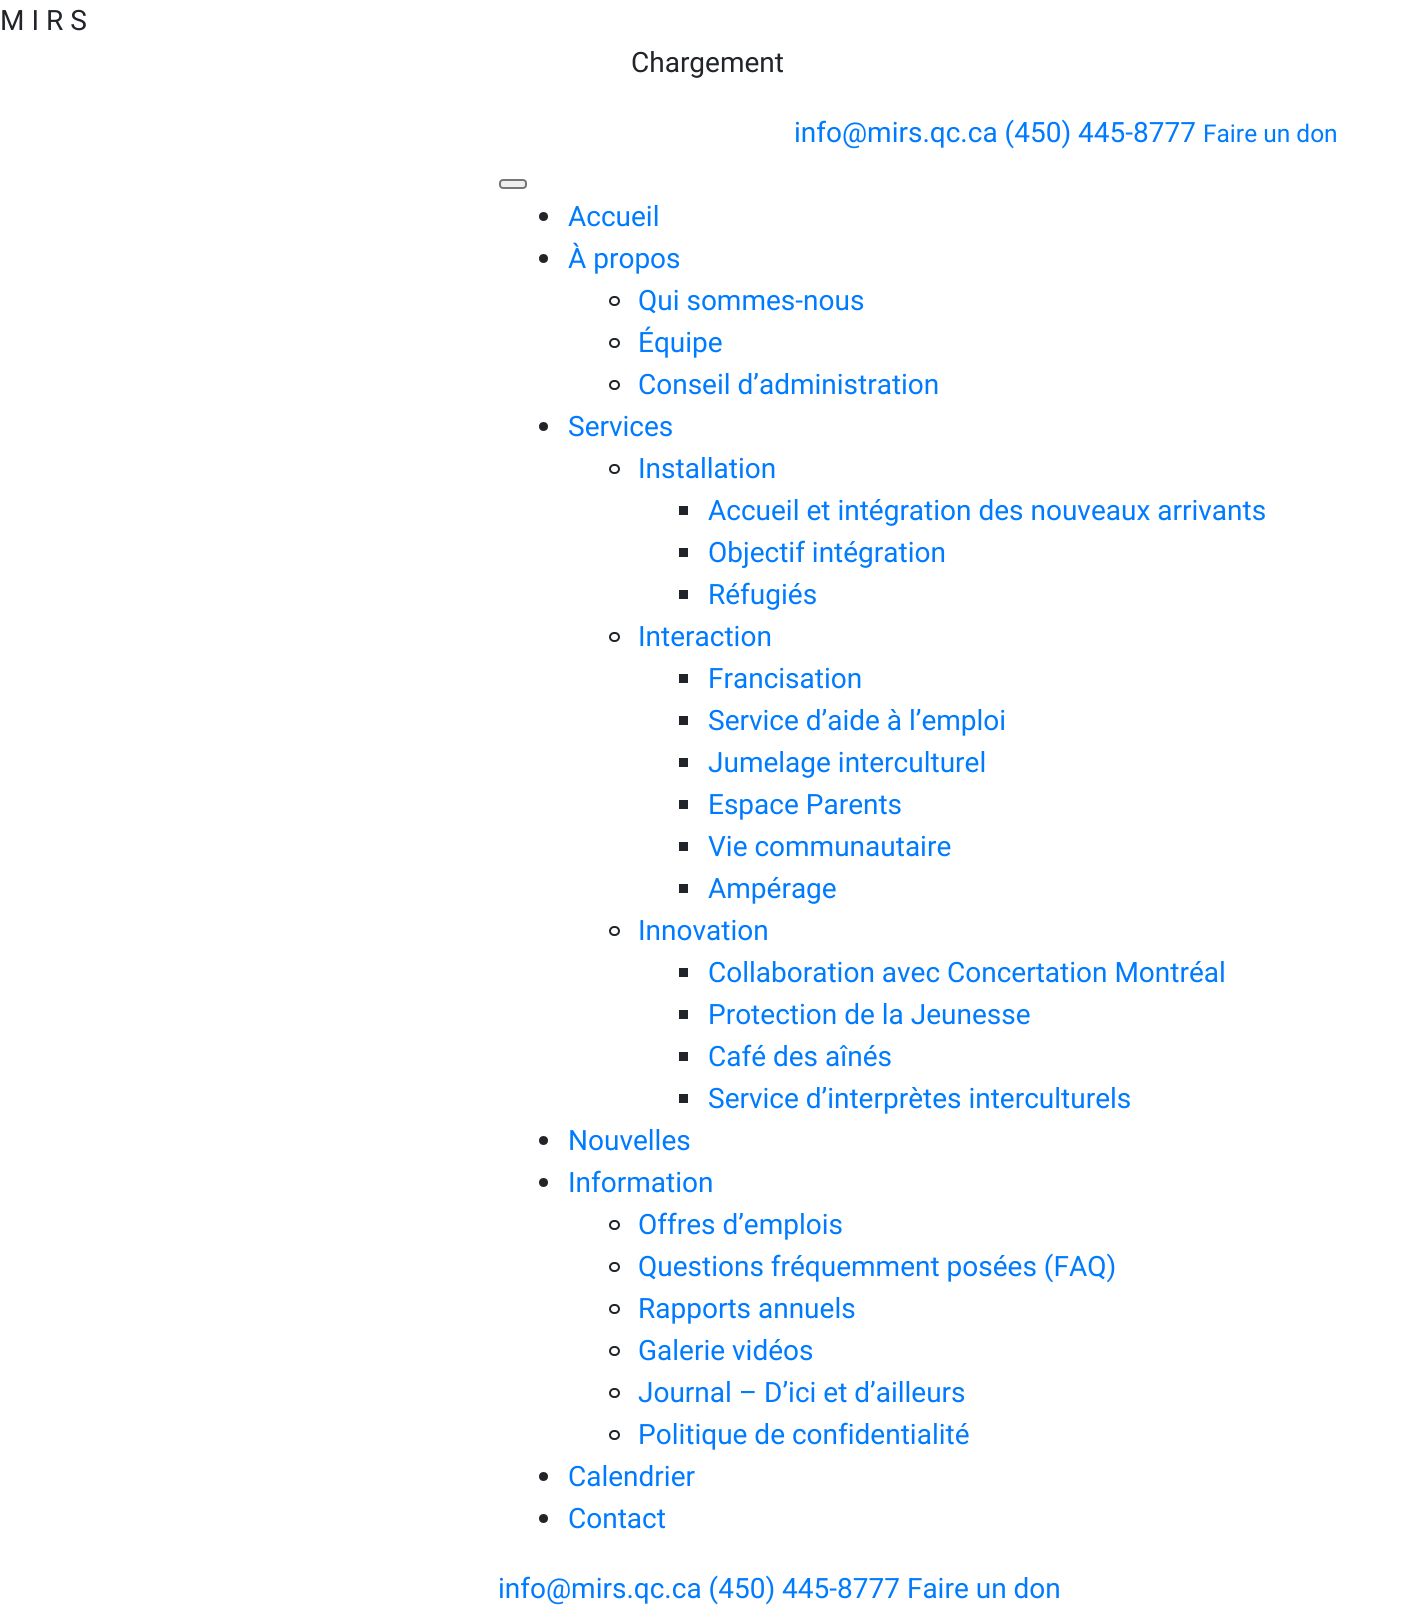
import math
import cairo


def use_color(cr, r, g, b):
  cr.set_source_rgb(r / 255, g / 255, b / 255)

def text(cr, x, y, s, family, size, color, bold=False, italic=False):
  cr.select_font_face(family, cairo.FONT_SLANT_ITALIC if italic else cairo.FONT_SLANT_NORMAL, cairo.FONT_WEIGHT_BOLD if bold else cairo.FONT_WEIGHT_NORMAL)
  cr.set_font_size(size)
  use_color(cr, *color)
  cr.move_to(x, y)
  cr.show_text(s)

def box(cr, x, y, w, h, *color):
  use_color(cr, *color)
  cr.rectangle(x, y, w, h)
  cr.fill()

def round_rect(cr, x, y, w, h, r):
  cr.new_sub_path()
  for i, (u, v) in enumerate([(x + w - r, y + h - r), (x + r, y + h - r), (x + r, y + r), (x + w - r, y + r)]):
    cr.arc(u, v, r, i * math.pi / 2, (i + 1) * math.pi / 2)
  cr.close_path()

def draw(cr):
  use_color(cr, 255, 255, 255)
  cr.paint()
  use_color(cr, 239, 239, 239)
  round_rect(cr, 500, 180, 26, 8, 3)
  cr.fill_preserve()
  use_color(cr, 118, 118, 118)
  cr.stroke()
  use_color(cr, 33, 37, 41)
  cr.arc(543.5, 216.5, 4.5, 0, 2 * math.pi)
  cr.fill()
  cr.arc(543.5, 258.5, 4.5, 0, 2 * math.pi)
  cr.fill()
  round_rect(cr, 610, 297, 9, 8, 4)
  cr.stroke()
  round_rect(cr, 610, 339, 9, 8, 4)
  cr.stroke()
  round_rect(cr, 610, 381, 9, 8, 4)
  cr.stroke()
  cr.arc(543.5, 426.5, 4.5, 0, 2 * math.pi)
  cr.fill()
  round_rect(cr, 610, 465, 9, 8, 4)
  cr.stroke()
  box(cr, 679, 506, 9, 9, 33, 37, 41)
  box(cr, 679, 548, 9, 9, 33, 37, 41)
  box(cr, 679, 590, 9, 9, 33, 37, 41)
  round_rect(cr, 610, 633, 9, 8, 4)
  cr.stroke()
  box(cr, 679, 674, 9, 9, 33, 37, 41)
  box(cr, 679, 716, 9, 9, 33, 37, 41)
  box(cr, 679, 758, 9, 9, 33, 37, 41)
  box(cr, 679, 800, 9, 9, 33, 37, 41)
  box(cr, 679, 842, 9, 9, 33, 37, 41)
  box(cr, 679, 884, 9, 9, 33, 37, 41)
  round_rect(cr, 610, 927, 9, 8, 4)
  cr.stroke()
  box(cr, 679, 968, 9, 9, 33, 37, 41)
  box(cr, 679, 1010, 9, 9, 33, 37, 41)
  box(cr, 679, 1052, 9, 9, 33, 37, 41)
  box(cr, 679, 1094, 9, 9, 33, 37, 41)
  cr.arc(543.5, 1140.5, 4.5, 0, 2 * math.pi)
  cr.fill()
  cr.arc(543.5, 1182.5, 4.5, 0, 2 * math.pi)
  cr.fill()
  round_rect(cr, 610, 1221, 9, 8, 4)
  cr.stroke()
  round_rect(cr, 610, 1263, 9, 8, 4)
  cr.stroke()
  round_rect(cr, 610, 1305, 9, 8, 4)
  cr.stroke()
  round_rect(cr, 610, 1347, 9, 8, 4)
  cr.stroke()
  round_rect(cr, 610, 1389, 9, 8, 4)
  cr.stroke()
  round_rect(cr, 610, 1431, 9, 8, 4)
  cr.stroke()
  cr.arc(543.5, 1476.5, 4.5, 0, 2 * math.pi)
  cr.fill()
  cr.arc(543.5, 1518.5, 4.5, 0, 2 * math.pi)
  cr.fill()
  text(cr, 0, 30, "M I R S", "Roboto", 28, (33, 37, 41))
  text(cr, 631, 72, "Chargement", "Roboto", 28, (33, 37, 41))
  text(cr, 794, 142, "info@mirs.qc.ca (450) 445-8777", "Roboto", 28, (0, 123, 255))
  text(cr, 1203, 142, "Faire un don", "Roboto", 24.5, (0, 123, 255))
  text(cr, 568, 226, "Accueil", "Roboto", 28, (0, 123, 255))
  text(cr, 568, 268, "À propos", "Roboto", 28, (0, 123, 255))
  text(cr, 638, 310, "Qui sommes-nous", "Roboto", 28, (0, 123, 255))
  text(cr, 638, 352, "Équipe", "Roboto", 28, (0, 123, 255))
  text(cr, 638, 394, "Conseil d’administration", "Roboto", 28, (0, 123, 255))
  text(cr, 568, 436, "Services", "Roboto", 28, (0, 123, 255))
  text(cr, 638, 478, "Installation", "Roboto", 28, (0, 123, 255))
  text(cr, 708, 520, "Accueil et intégration des nouveaux arrivants", "Roboto", 28, (0, 123, 255))
  text(cr, 708, 562, "Objectif intégration", "Roboto", 28, (0, 123, 255))
  text(cr, 708, 604, "Réfugiés", "Roboto", 28, (0, 123, 255))
  text(cr, 638, 646, "Interaction", "Roboto", 28, (0, 123, 255))
  text(cr, 708, 688, "Francisation", "Roboto", 28, (0, 123, 255))
  text(cr, 708, 730, "Service d’aide à l’emploi", "Roboto", 28, (0, 123, 255))
  text(cr, 708, 772, "Jumelage interculturel", "Roboto", 28, (0, 123, 255))
  text(cr, 708, 814, "Espace Parents", "Roboto", 28, (0, 123, 255))
  text(cr, 708, 856, "Vie communautaire", "Roboto", 28, (0, 123, 255))
  text(cr, 708, 898, "Ampérage", "Roboto", 28, (0, 123, 255))
  text(cr, 638, 940, "Innovation", "Roboto", 28, (0, 123, 255))
  text(cr, 708, 982, "Collaboration avec Concertation Montréal", "Roboto", 28, (0, 123, 255))
  text(cr, 708, 1024, "Protection de la Jeunesse", "Roboto", 28, (0, 123, 255))
  text(cr, 708, 1066, "Café des aînés", "Roboto", 28, (0, 123, 255))
  text(cr, 708, 1108, "Service d’interprètes interculturels", "Roboto", 28, (0, 123, 255))
  text(cr, 568, 1150, "Nouvelles", "Roboto", 28, (0, 123, 255))
  text(cr, 568, 1192, "Information", "Roboto", 28, (0, 123, 255))
  text(cr, 638, 1234, "Offres d’emplois", "Roboto", 28, (0, 123, 255))
  text(cr, 638, 1276, "Questions fréquemment posées (FAQ)", "Roboto", 28, (0, 123, 255))
  text(cr, 638, 1318, "Rapports annuels", "Roboto", 28, (0, 123, 255))
  text(cr, 638, 1360, "Galerie vidéos", "Roboto", 28, (0, 123, 255))
  text(cr, 638, 1402, "Journal – D’ici et d’ailleurs", "Roboto", 28, (0, 123, 255))
  text(cr, 638, 1444, "Politique de confidentialité", "Roboto", 28, (0, 123, 255))
  text(cr, 568, 1486, "Calendrier", "Roboto", 28, (0, 123, 255))
  text(cr, 568, 1528, "Contact", "Roboto", 28, (0, 123, 255))
  text(cr, 498, 1598, "info@mirs.qc.ca (450) 445-8777 Faire un don", "Roboto", 28, (0, 123, 255))


surface = cairo.ImageSurface(cairo.FORMAT_RGB24, 1415, 1619)
cr = cairo.Context(surface)
options = cairo.FontOptions()
options.set_hint_metrics(cairo.HINT_METRICS_OFF)
options.set_hint_style(cairo.HINT_STYLE_NONE)
cr.set_font_options(options)
cr.set_miter_limit(4)
draw(cr)
surface.write_to_png("out.png")
